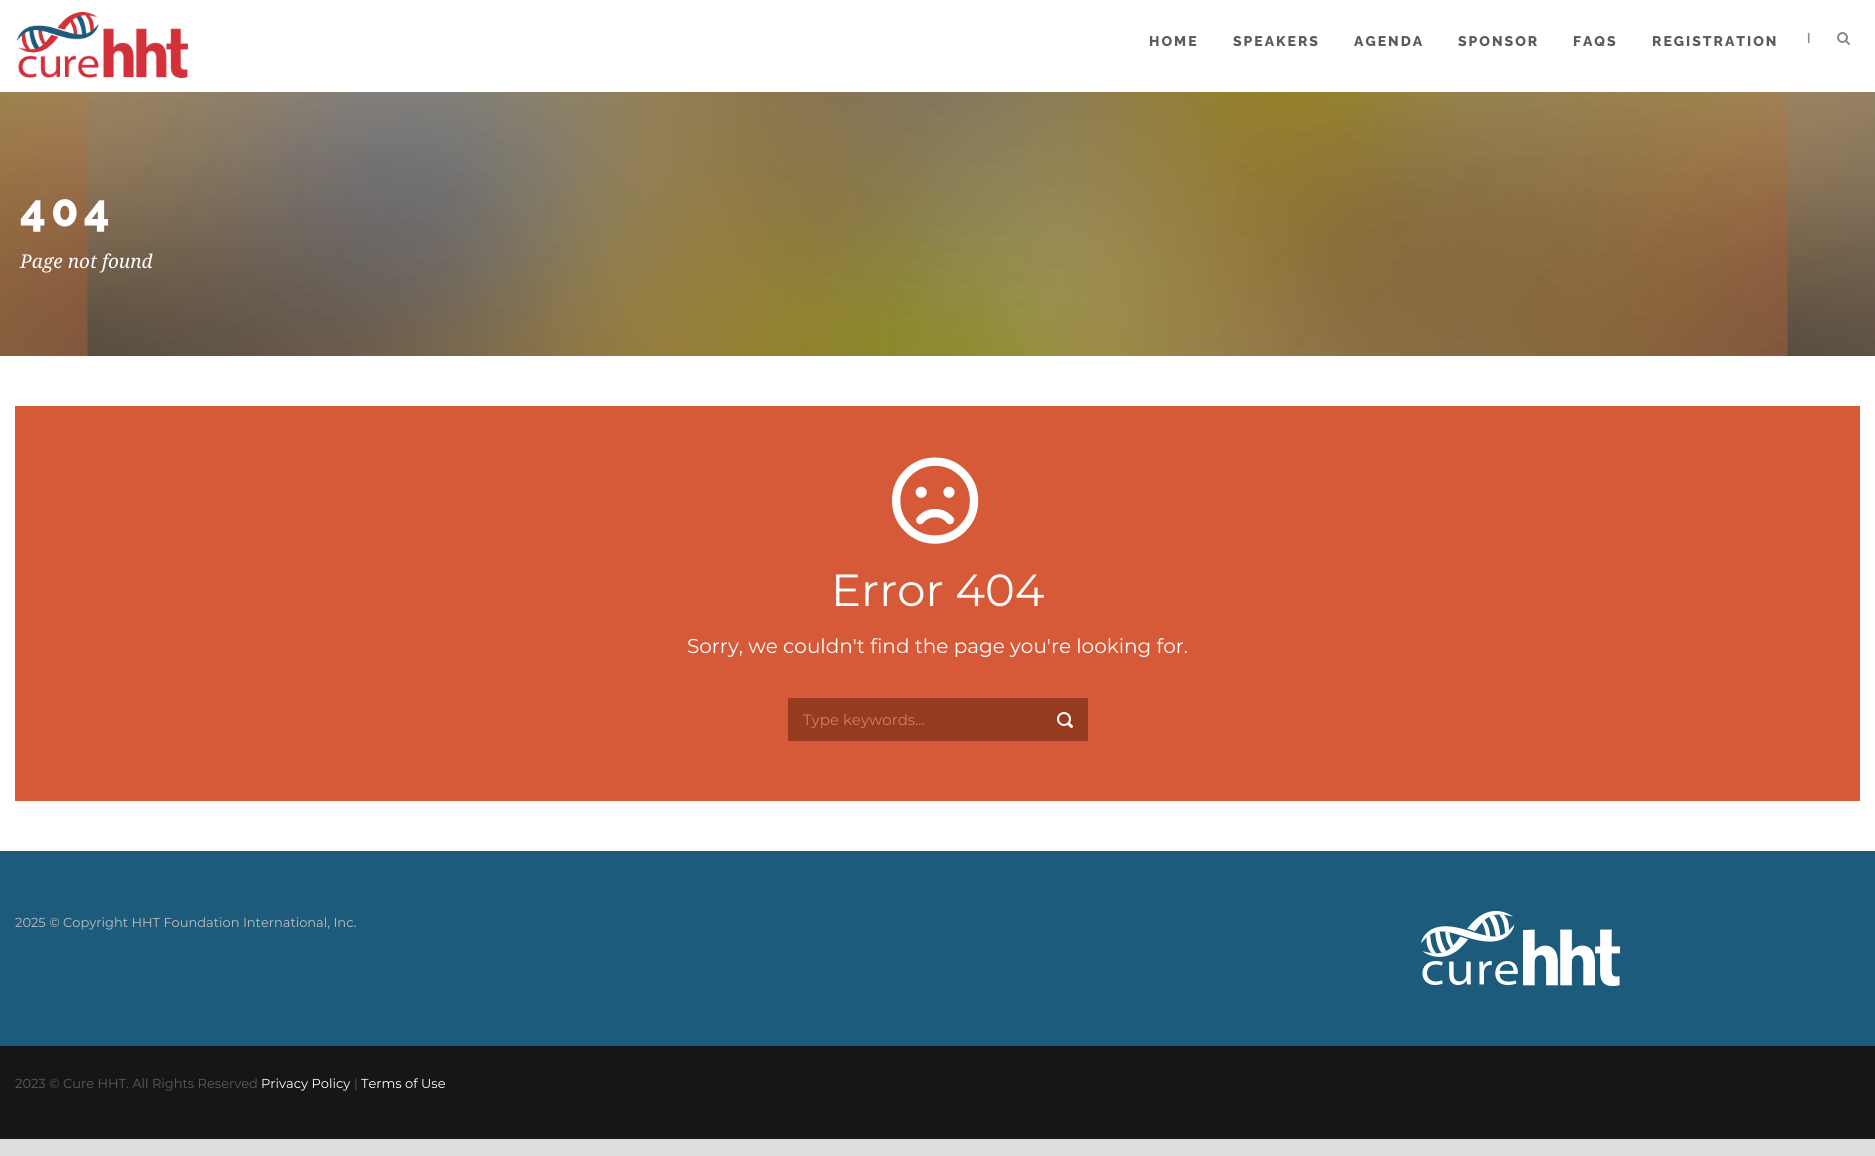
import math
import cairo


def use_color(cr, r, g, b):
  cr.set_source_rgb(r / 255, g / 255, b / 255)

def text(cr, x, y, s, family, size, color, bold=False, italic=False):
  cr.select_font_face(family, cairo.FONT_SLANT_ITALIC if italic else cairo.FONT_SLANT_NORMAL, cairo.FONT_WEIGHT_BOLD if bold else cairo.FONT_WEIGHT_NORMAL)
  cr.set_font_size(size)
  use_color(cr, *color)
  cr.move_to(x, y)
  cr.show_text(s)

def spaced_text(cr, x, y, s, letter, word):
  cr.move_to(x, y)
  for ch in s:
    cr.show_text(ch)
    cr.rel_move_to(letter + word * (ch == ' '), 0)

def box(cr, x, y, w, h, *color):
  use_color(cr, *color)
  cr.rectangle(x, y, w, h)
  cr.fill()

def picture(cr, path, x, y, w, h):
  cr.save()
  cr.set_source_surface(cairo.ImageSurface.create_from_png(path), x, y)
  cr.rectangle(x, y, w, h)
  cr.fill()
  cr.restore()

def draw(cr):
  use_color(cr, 221, 221, 221)
  cr.paint()
  box(cr, 0, 0, 1875, 851, 255, 255, 255)
  picture(cr, "img_01.png", 17, 11, 172, 68)
  picture(cr, "img_02.png", 1837, 32, 13, 13)
  picture(cr, "img_03.png", 0, 92, 1875, 264)
  box(cr, 15, 406, 1845, 395, 214, 89, 56)
  picture(cr, "img_04.png", 892, 457, 87, 87)
  box(cr, 788, 698, 300, 43, 150, 58, 32)
  picture(cr, "img_05.png", 1057, 712, 16, 16)
  box(cr, 0, 851, 1875, 195, 28, 91, 124)
  picture(cr, "img_06.png", 1421, 911, 199, 75)
  box(cr, 0, 1046, 1875, 93, 22, 22, 22)
  cr.select_font_face("Raleway ExtraBold")
  cr.set_font_size(14)
  use_color(cr, 91, 91, 91)
  spaced_text(cr, 1149, 46, "HOME", 2, 0)
  spaced_text(cr, 1233, 46, "SPEAKERS", 2, 0)
  spaced_text(cr, 1354, 46, "AGENDA", 2, 0)
  spaced_text(cr, 1458, 46, "SPONSOR", 2, 0)
  spaced_text(cr, 1573, 46, "FAQS", 2, 0)
  spaced_text(cr, 1652, 46, "REGISTRATION", 2, 0)
  text(cr, 1807, 41, "|", "Montserrat", 11, (139, 139, 139), bold=True)
  cr.select_font_face("Raleway ExtraBold")
  cr.set_font_size(45)
  use_color(cr, 255, 255, 255)
  spaced_text(cr, 20, 226, "404", 5, 0)
  text(cr, 20, 268, "Page not found", "Droid Serif", 19, (255, 255, 255), italic=True)
  text(cr, 831, 606, "Error 404", "Montserrat", 45, (255, 255, 255))
  text(cr, 687, 653, "Sorry, we couldn't find the page you're looking for.", "Montserrat", 20, (255, 255, 255))
  text(cr, 803, 725, "Type keywords...", "Montserrat", 15, (213, 127, 92))
  text(cr, 15, 927, "2025 © Copyright HHT Foundation International, Inc.", "Montserrat", 13, (191, 191, 191))
  text(cr, 15, 1088, "2023 © Cure HHT. All Rights Reserved", "Montserrat", 13, (91, 91, 91))
  text(cr, 261, 1088, "Privacy Policy", "Montserrat", 13, (255, 255, 255))
  text(cr, 354, 1088, "|", "Montserrat", 13, (91, 91, 91))
  text(cr, 361, 1088, "Terms of Use", "Montserrat", 13, (255, 255, 255))


surface = cairo.ImageSurface(cairo.FORMAT_RGB24, 1875, 1156)
cr = cairo.Context(surface)
options = cairo.FontOptions()
options.set_hint_metrics(cairo.HINT_METRICS_OFF)
options.set_hint_style(cairo.HINT_STYLE_NONE)
cr.set_font_options(options)
cr.set_miter_limit(4)
draw(cr)
surface.write_to_png("out.png")
